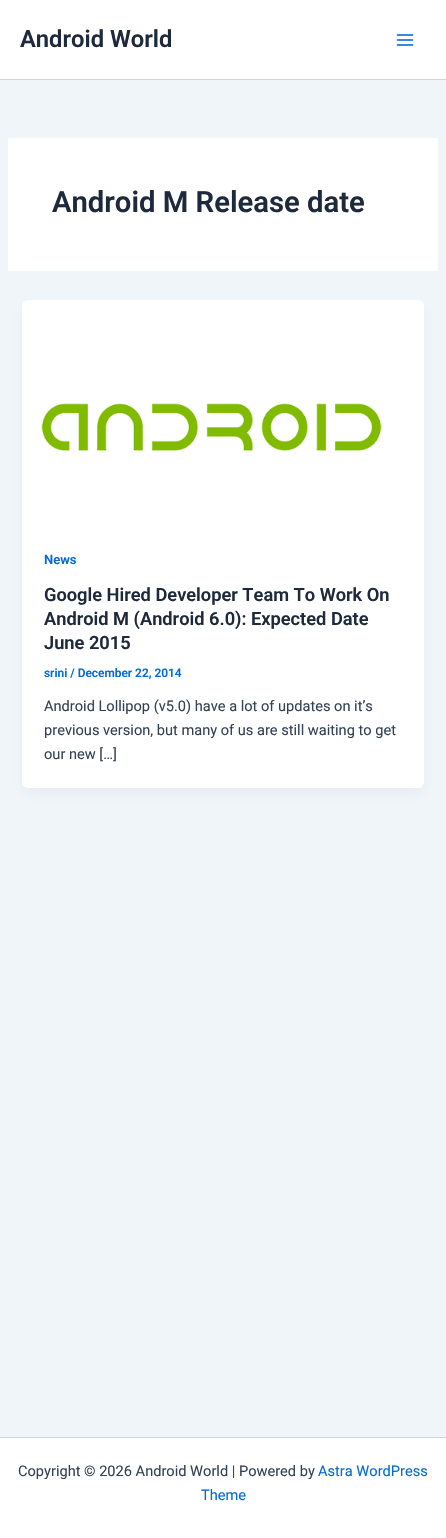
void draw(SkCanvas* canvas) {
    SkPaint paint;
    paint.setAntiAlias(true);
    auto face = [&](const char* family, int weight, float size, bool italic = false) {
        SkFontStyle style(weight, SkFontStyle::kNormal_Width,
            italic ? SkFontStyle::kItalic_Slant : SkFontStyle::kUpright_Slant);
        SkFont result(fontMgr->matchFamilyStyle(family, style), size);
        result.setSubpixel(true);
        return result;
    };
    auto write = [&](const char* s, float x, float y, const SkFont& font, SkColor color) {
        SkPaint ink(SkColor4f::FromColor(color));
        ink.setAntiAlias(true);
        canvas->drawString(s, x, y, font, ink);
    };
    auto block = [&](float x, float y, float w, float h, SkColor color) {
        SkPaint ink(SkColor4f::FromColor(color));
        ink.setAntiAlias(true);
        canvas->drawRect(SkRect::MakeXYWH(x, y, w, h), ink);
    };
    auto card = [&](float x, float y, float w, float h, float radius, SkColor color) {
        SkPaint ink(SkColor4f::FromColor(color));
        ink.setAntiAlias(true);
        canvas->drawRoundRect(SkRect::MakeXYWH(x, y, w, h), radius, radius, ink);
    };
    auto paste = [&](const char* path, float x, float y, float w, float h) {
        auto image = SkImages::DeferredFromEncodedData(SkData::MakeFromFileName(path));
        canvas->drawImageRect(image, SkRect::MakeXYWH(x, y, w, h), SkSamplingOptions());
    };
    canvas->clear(SkColorSetRGB(240, 245, 250));
    block(0, 0, 446, 79, SK_ColorWHITE);
    block(0, 79, 446, 1, SkColorSetRGB(209, 213, 219));
    auto kFont1 = face("Roboto", 600, 23.75f);
    write("Android World", 20, 47, kFont1, SkColorSetRGB(30, 41, 59));
    paste("pic1.png", 396, 34, 18, 12);
    block(8, 138, 430, 133, SK_ColorWHITE);
    auto kFont2 = face("Roboto", 600, 29.25f);
    write("Android M Release date", 52, 212, kFont2, SkColorSetRGB(30, 41, 59));
    paint.setColor(SkColorSetARGB(13, 16, 24, 40));
    paint.setMaskFilter(SkMaskFilter::MakeBlur(kNormal_SkBlurStyle, 7.5f));
    canvas->drawRoundRect(SkRect::MakeXYWH(24, 308, 398, 484), 4, 4, paint);
    paint.setMaskFilter(nullptr);
    card(22, 300, 402, 488, 6, SK_ColorWHITE);
    paste("pic2.png", 41, 403, 341, 48);
    auto kFont3 = face("Roboto", 600, 13);
    write("News", 44, 564, kFont3, SkColorSetRGB(4, 107, 210));
    auto kFont4 = face("Roboto", 600, 18.25f);
    write("Google Hired Developer Team To Work On", 44, 601, kFont4, SkColorSetRGB(30, 41, 59));
    write("Android M (Android 6.0): Expected Date", 44, 625, kFont4, SkColorSetRGB(30, 41, 59));
    write("June 2015", 44, 649, kFont4, SkColorSetRGB(30, 41, 59));
    auto kFont5 = face("Roboto", 600, 11.9f);
    write("srini / December 22, 2014", 44, 677, kFont5, SkColorSetRGB(4, 107, 210));
    auto kFont6 = face("Roboto", 400, 14.6f);
    write("Android Lollipop (v5.0) have a lot of updates on it’s", 44, 711, kFont6, SkColorSetRGB(51, 65, 85));
    write("previous version, but many of us are still waiting to get", 44, 735, kFont6, SkColorSetRGB(51, 65, 85));
    write("our new […]", 44, 759, kFont6, SkColorSetRGB(51, 65, 85));
    block(0, 1438, 446, 100, SK_ColorWHITE);
    block(0, 1437, 446, 1, SkColorSetRGB(209, 213, 219));
    write("Copyright © 2026 Android World | Powered by", 18, 1476, kFont6, SkColorSetRGB(51, 65, 85));
    write("Astra WordPress", 318, 1476, kFont6, SkColorSetRGB(4, 107, 210));
    write("Theme", 201, 1500, kFont6, SkColorSetRGB(4, 107, 210));
}
